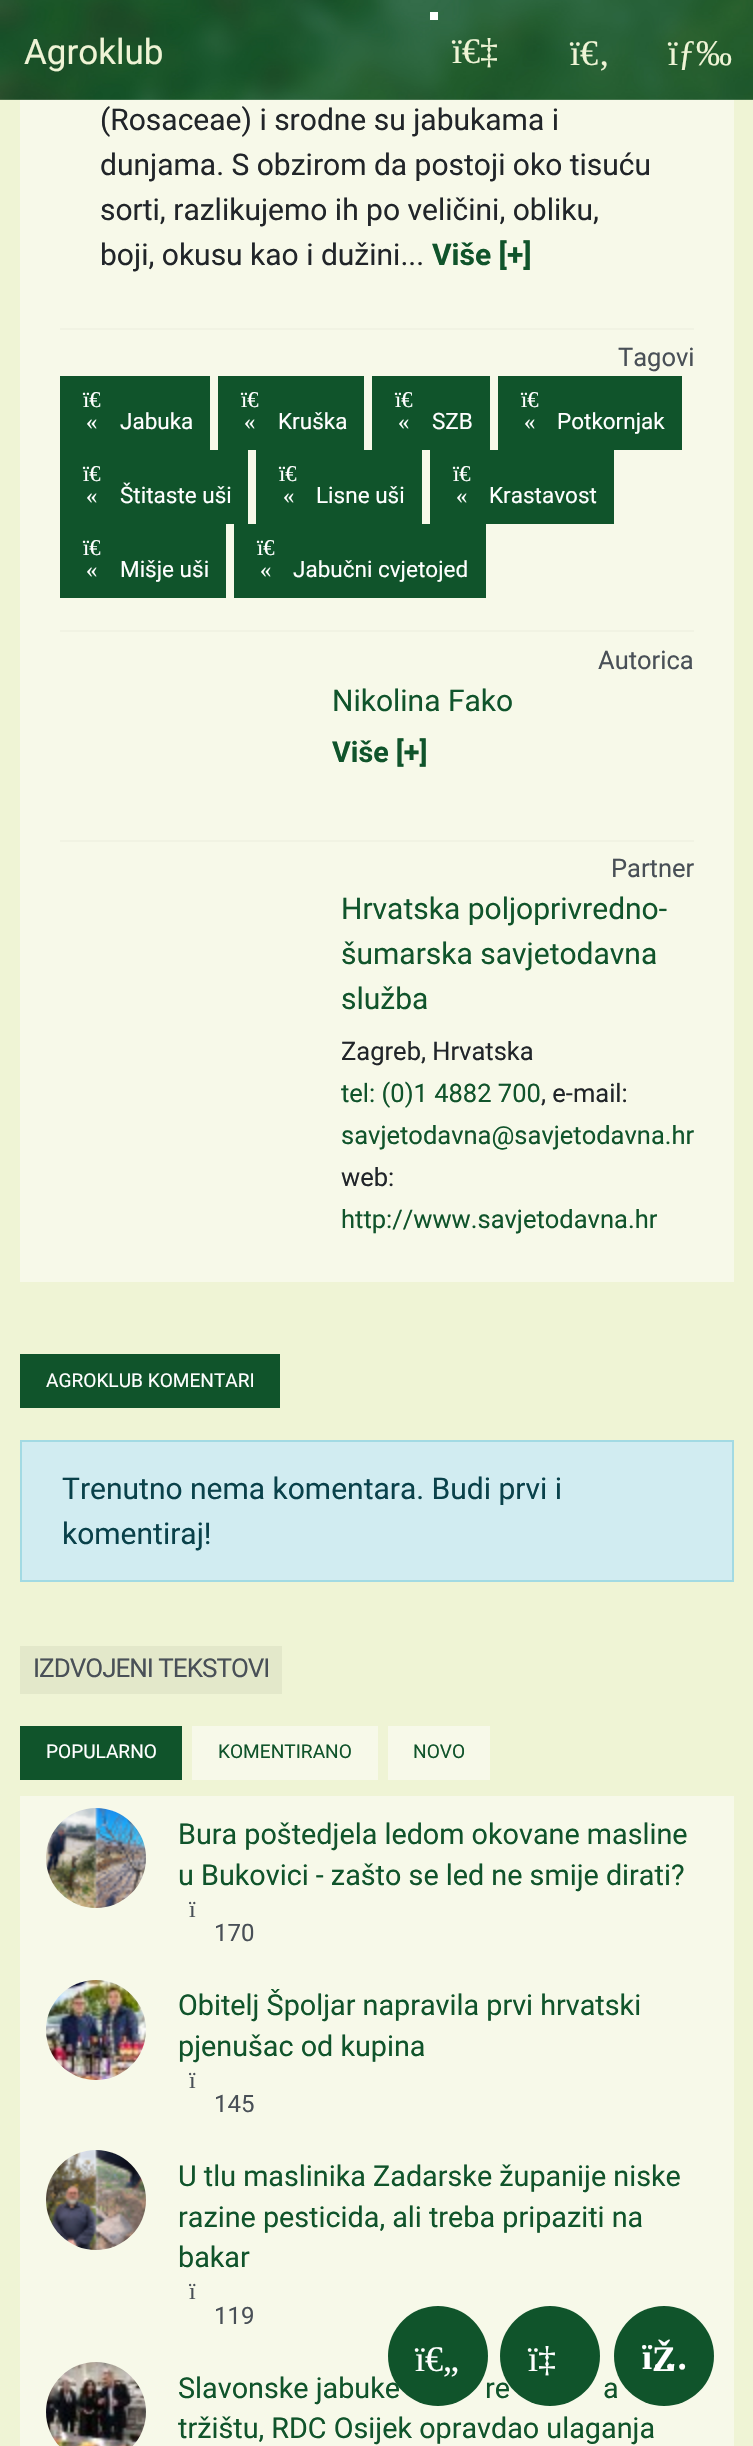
void draw(SkCanvas* canvas) {
    SkPaint paint;
    paint.setAntiAlias(true);
    auto face = [&](const char* family, int weight, float size, bool italic = false) {
        SkFontStyle style(weight, SkFontStyle::kNormal_Width,
            italic ? SkFontStyle::kItalic_Slant : SkFontStyle::kUpright_Slant);
        SkFont result(fontMgr->matchFamilyStyle(family, style), size);
        result.setSubpixel(true);
        return result;
    };
    auto write = [&](const char* s, float x, float y, const SkFont& font, SkColor color) {
        SkPaint ink(SkColor4f::FromColor(color));
        ink.setAntiAlias(true);
        canvas->drawString(s, x, y, font, ink);
    };
    auto writeSpaced = [&](const char* s, float x, float y, const SkFont& font, const SkPaint& ink, float letter, float word) {
        std::vector<SkGlyphID> glyphs(font.countText(s, strlen(s), SkTextEncoding::kUTF8));
        std::vector<float> xs(glyphs.size());
        font.textToGlyphs(s, strlen(s), SkTextEncoding::kUTF8, glyphs);
        font.getXPos(glyphs, xs, x);
        float extra = 0;
        for (size_t i = 0; i < glyphs.size(); i++) {
            xs[i] += extra;
            extra += letter + word * (glyphs[i] == font.unicharToGlyph(' '));
        }
        canvas->drawTextBlob(SkTextBlob::MakeFromPosHGlyphs(glyphs, xs, y, font), 0, 0, ink);
    };
    auto block = [&](float x, float y, float w, float h, SkColor color) {
        SkPaint ink(SkColor4f::FromColor(color));
        ink.setAntiAlias(true);
        canvas->drawRect(SkRect::MakeXYWH(x, y, w, h), ink);
    };
    auto paste = [&](const char* path, float x, float y, float w, float h) {
        auto image = SkImages::DeferredFromEncodedData(SkData::MakeFromFileName(path));
        canvas->drawImageRect(image, SkRect::MakeXYWH(x, y, w, h), SkSamplingOptions());
    };
    canvas->clear(SkColorSetRGB(239, 244, 213));
    block(20, 99, 714, 1183, SkColorSetRGB(247, 249, 233));
    paste("pic1.png", 0, 0, 753, 100);
    auto kFont1 = face("Roboto", 400, 35);
    write("Agroklub", 24, 64, kFont1, SkColorSetRGB(239, 244, 213));
    block(430, 12, 8, 8, SK_ColorWHITE);
    auto kFont2 = face("Liberation Serif", 400, 36);
    write("ï€‡", 452, 63, kFont2, SkColorSetRGB(239, 244, 213));
    write("ï€‚", 570, 65, kFont2, SkColorSetRGB(239, 244, 213));
    write("ïƒ‰", 668, 65, kFont2, SkColorSetRGB(239, 244, 213));
    auto kFont3 = face("Roboto", 400, 30);
    write("(Rosaceae) i srodne su jabukama i", 100, 130, kFont3, SkColorSetRGB(33, 37, 41));
    write("dunjama. S obzirom da postoji oko tisuću", 100, 175, kFont3, SkColorSetRGB(33, 37, 41));
    write("sorti, razlikujemo ih po veličini, obliku,", 100, 220, kFont3, SkColorSetRGB(33, 37, 41));
    write("boji, okusu kao i dužini...", 100, 265, kFont3, SkColorSetRGB(33, 37, 41));
    auto kFont4 = face("Roboto", 700, 30);
    write("Više [+]", 432, 265, kFont4, SkColorSetRGB(16, 84, 43));
    block(60, 328, 634, 2, SkColorSetRGB(241, 243, 227));
    auto kFont5 = face("Roboto", 400, 25.5f);
    write("Tagovi", 618, 366, kFont5, SkColorSetRGB(73, 80, 87));
    block(60, 376, 150, 74, SkColorSetRGB(16, 84, 43));
    auto kFont6 = face("Liberation Serif", 400, 22.5f);
    write("ï€", 83, 407, kFont6, SK_ColorWHITE);
    write("«", 86, 429, kFont6, SK_ColorWHITE);
    auto kFont7 = face("Roboto", 400, 22.5f);
    write("Jabuka", 120, 429, kFont7, SK_ColorWHITE);
    block(218, 376, 146, 74, SkColorSetRGB(16, 84, 43));
    write("ï€", 241, 407, kFont6, SK_ColorWHITE);
    write("«", 244, 429, kFont6, SK_ColorWHITE);
    write("Kruška", 278, 429, kFont7, SK_ColorWHITE);
    block(372, 376, 118, 74, SkColorSetRGB(16, 84, 43));
    write("ï€", 395, 407, kFont6, SK_ColorWHITE);
    write("«", 398, 429, kFont6, SK_ColorWHITE);
    write("SZB", 432, 429, kFont7, SK_ColorWHITE);
    block(498, 376, 184, 74, SkColorSetRGB(16, 84, 43));
    write("ï€", 521, 407, kFont6, SK_ColorWHITE);
    write("«", 524, 429, kFont6, SK_ColorWHITE);
    write("Potkornjak", 557, 429, kFont7, SK_ColorWHITE);
    block(60, 450, 188, 74, SkColorSetRGB(16, 84, 43));
    write("ï€", 83, 481, kFont6, SK_ColorWHITE);
    write("«", 86, 503, kFont6, SK_ColorWHITE);
    write("Štitaste uši", 120, 503, kFont7, SK_ColorWHITE);
    block(256, 450, 166, 74, SkColorSetRGB(16, 84, 43));
    write("ï€", 279, 481, kFont6, SK_ColorWHITE);
    write("«", 283, 503, kFont6, SK_ColorWHITE);
    write("Lisne uši", 316, 503, kFont7, SK_ColorWHITE);
    block(430, 450, 184, 74, SkColorSetRGB(16, 84, 43));
    write("ï€", 453, 481, kFont6, SK_ColorWHITE);
    write("«", 456, 503, kFont6, SK_ColorWHITE);
    write("Krastavost", 489, 503, kFont7, SK_ColorWHITE);
    block(60, 524, 166, 74, SkColorSetRGB(16, 84, 43));
    write("ï€", 83, 555, kFont6, SK_ColorWHITE);
    write("«", 86, 577, kFont6, SK_ColorWHITE);
    write("Mišje uši", 120, 577, kFont7, SK_ColorWHITE);
    block(234, 524, 252, 74, SkColorSetRGB(16, 84, 43));
    write("ï€", 257, 555, kFont6, SK_ColorWHITE);
    write("«", 260, 577, kFont6, SK_ColorWHITE);
    write("Jabučni cvjetojed", 293, 577, kFont7, SK_ColorWHITE);
    block(60, 630, 634, 2, SkColorSetRGB(241, 243, 227));
    write("Autorica", 598, 669, kFont5, SkColorSetRGB(73, 80, 87));
    write("Nikolina Fako", 332, 711, kFont3, SkColorSetRGB(16, 84, 43));
    auto kFont8 = face("Roboto", 700, 28.75f);
    write("Više [+]", 332, 762, kFont8, SkColorSetRGB(16, 84, 43));
    block(60, 840, 634, 2, SkColorSetRGB(241, 243, 227));
    write("Partner", 611, 877, kFont5, SkColorSetRGB(73, 80, 87));
    write("Hrvatska poljoprivredno-", 341, 919, kFont3, SkColorSetRGB(16, 84, 43));
    write("šumarska savjetodavna", 341, 964, kFont3, SkColorSetRGB(16, 84, 43));
    write("služba", 341, 1009, kFont3, SkColorSetRGB(16, 84, 43));
    write("Zagreb, Hrvatska", 341, 1060, kFont5, SkColorSetRGB(33, 37, 41));
    write("tel: (0)1 4882 700", 341, 1102, kFont5, SkColorSetRGB(16, 84, 43));
    write(", e-mail:", 541, 1102, kFont5, SkColorSetRGB(33, 37, 41));
    write("savjetodavna@savjetodavna.hr", 341, 1144, kFont5, SkColorSetRGB(16, 84, 43));
    write("web:", 341, 1186, kFont5, SkColorSetRGB(33, 37, 41));
    write("http://www.savjetodavna.hr", 341, 1228, kFont5, SkColorSetRGB(16, 84, 43));
    block(20, 1354, 260, 54, SkColorSetRGB(16, 84, 43));
    auto kFont9 = face("Roboto", 400, 19.1f);
    write("AGROKLUB KOMENTARI", 46, 1387, kFont9, SK_ColorWHITE);
    paint.setColor(SkColorSetRGB(209, 236, 241));
    canvas->drawRect(SkRect::MakeXYWH(21, 1441, 712, 140), paint);
    paint.setStyle(SkPaint::kStroke_Style);
    paint.setStrokeWidth(2);
    paint.setColor(SkColorSetRGB(162, 218, 227));
    canvas->drawRect(SkRect::MakeXYWH(21, 1441, 712, 140), paint);
    write("Trenutno nema komentara. Budi prvi i", 62, 1499, kFont3, SkColorSetRGB(9, 65, 74));
    write("komentiraj!", 62, 1544, kFont3, SkColorSetRGB(9, 65, 74));
    block(20, 1646, 262, 48, SkColorSetRGB(227, 232, 202));
    auto kFont10 = face("Roboto", 400, 26);
    paint.setStyle(SkPaint::kFill_Style);
    paint.setColor(SkColorSetRGB(73, 80, 87));
    writeSpaced("IZDVOJENI TEKSTOVI", 33, 1677, kFont10, paint, -1, 0);
    block(20, 1726, 162, 54, SkColorSetRGB(16, 84, 43));
    write("POPULARNO", 46, 1758, kFont9, SK_ColorWHITE);
    block(192, 1726, 186, 54, SkColorSetRGB(247, 249, 233));
    write("KOMENTIRANO", 218, 1758, kFont9, SkColorSetRGB(16, 84, 43));
    block(388, 1726, 102, 54, SkColorSetRGB(247, 249, 233));
    write("NOVO", 413, 1758, kFont9, SkColorSetRGB(16, 84, 43));
    block(20, 1796, 714, 650, SkColorSetRGB(247, 249, 233));
    paste("pic2.png", 46, 1808, 100, 100);
    auto kFont11 = face("Roboto", 400, 28.75f);
    write("Bura poštedjela ledom okovane masline", 178, 1844, kFont11, SkColorSetRGB(16, 84, 43));
    write("u Bukovici - zašto se led ne smije dirati?", 178, 1885, kFont11, SkColorSetRGB(16, 84, 43));
    auto kFont12 = face("Liberation Serif", 400, 24);
    write("ï", 189, 1917, kFont12, SkColorSetRGB(73, 80, 87));
    auto kFont13 = face("Roboto", 400, 24);
    write("170", 214, 1941, kFont13, SkColorSetRGB(73, 80, 87));
    paste("pic3.png", 46, 1980, 100, 100);
    write("Obitelj Špoljar napravila prvi hrvatski", 178, 2015, kFont11, SkColorSetRGB(16, 84, 43));
    write("pjenušac od kupina", 178, 2056, kFont11, SkColorSetRGB(16, 84, 43));
    write("ï", 189, 2088, kFont12, SkColorSetRGB(73, 80, 87));
    write("145", 214, 2112, kFont13, SkColorSetRGB(73, 80, 87));
    paste("pic4.png", 46, 2150, 100, 100);
    write("U tlu maslinika Zadarske županije niske", 178, 2186, kFont11, SkColorSetRGB(16, 84, 43));
    write("razine pesticida, ali treba pripaziti na", 178, 2227, kFont11, SkColorSetRGB(16, 84, 43));
    write("bakar", 178, 2267, kFont11, SkColorSetRGB(16, 84, 43));
    write("ï", 189, 2299, kFont12, SkColorSetRGB(73, 80, 87));
    write("119", 214, 2324, kFont13, SkColorSetRGB(73, 80, 87));
    paste("pic5.png", 46, 2362, 100, 84);
    write("Slavonske jabuke", 178, 2398, kFont11, SkColorSetRGB(16, 84, 43));
    write("re", 485, 2398, kFont11, SkColorSetRGB(16, 84, 43));
    write("a", 603, 2398, kFont11, SkColorSetRGB(16, 84, 43));
    write("tržištu, RDC Osijek opravdao ulaganja", 178, 2438, kFont11, SkColorSetRGB(16, 84, 43));
    paint.setColor(SkColorSetRGB(16, 84, 43));
    canvas->drawCircle(438, 2356, 50, paint);
    write("ï€„", 415, 2371, kFont2, SK_ColorWHITE);
    canvas->drawCircle(550, 2356, 50, paint);
    write("ï‡", 528, 2371, kFont2, SK_ColorWHITE);
    canvas->drawCircle(664, 2356, 50, paint);
    auto kFont14 = face("Liberation Serif", 700, 36);
    write("ï…", 642, 2369, kFont14, SK_ColorWHITE);
    write("Ž", 652, 2371, kFont14, SK_ColorWHITE);
}
